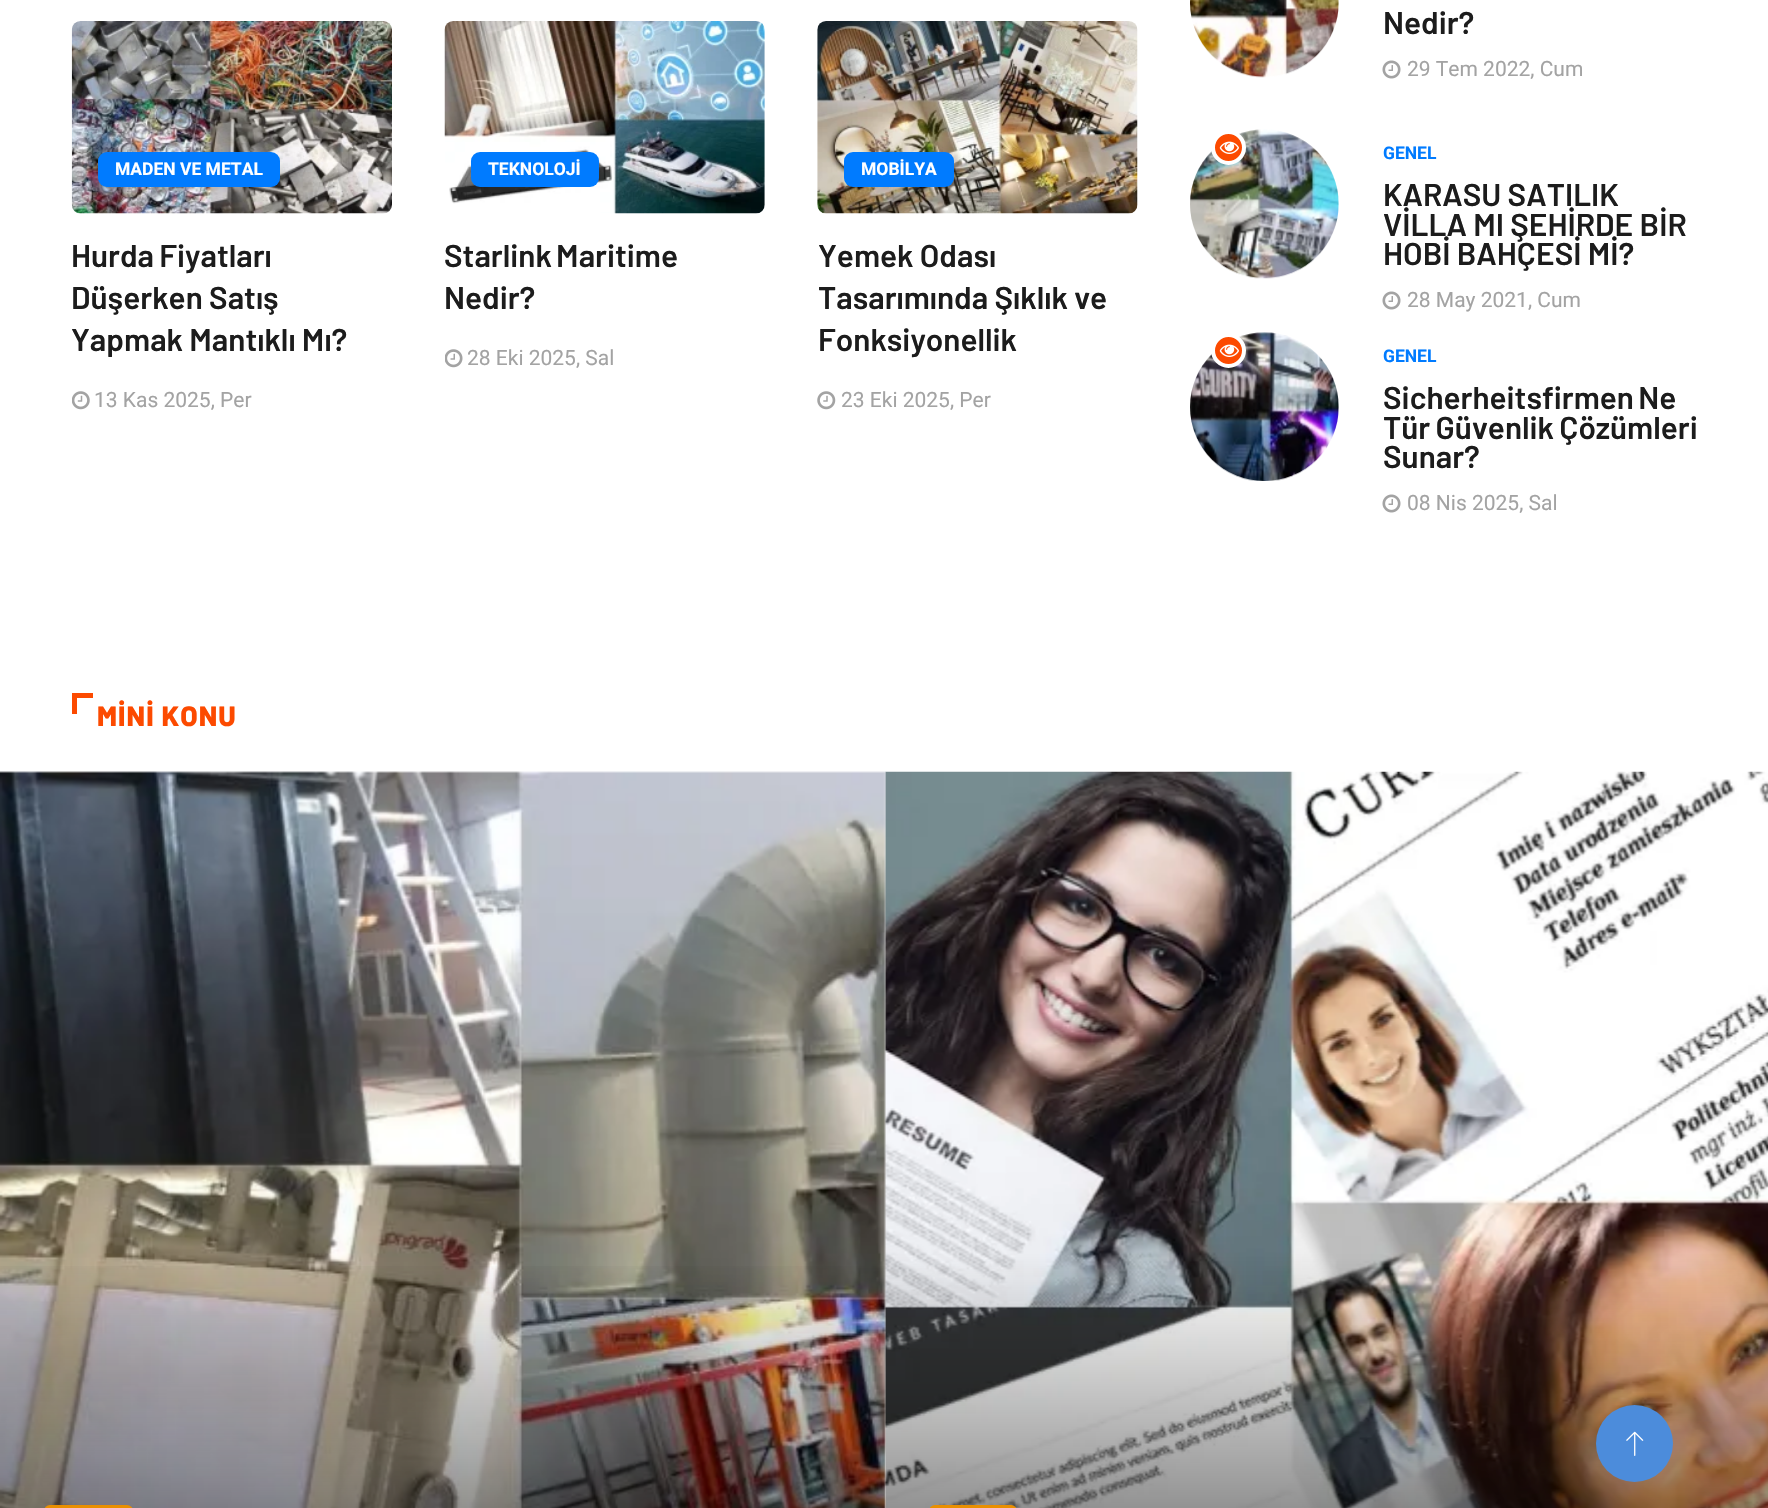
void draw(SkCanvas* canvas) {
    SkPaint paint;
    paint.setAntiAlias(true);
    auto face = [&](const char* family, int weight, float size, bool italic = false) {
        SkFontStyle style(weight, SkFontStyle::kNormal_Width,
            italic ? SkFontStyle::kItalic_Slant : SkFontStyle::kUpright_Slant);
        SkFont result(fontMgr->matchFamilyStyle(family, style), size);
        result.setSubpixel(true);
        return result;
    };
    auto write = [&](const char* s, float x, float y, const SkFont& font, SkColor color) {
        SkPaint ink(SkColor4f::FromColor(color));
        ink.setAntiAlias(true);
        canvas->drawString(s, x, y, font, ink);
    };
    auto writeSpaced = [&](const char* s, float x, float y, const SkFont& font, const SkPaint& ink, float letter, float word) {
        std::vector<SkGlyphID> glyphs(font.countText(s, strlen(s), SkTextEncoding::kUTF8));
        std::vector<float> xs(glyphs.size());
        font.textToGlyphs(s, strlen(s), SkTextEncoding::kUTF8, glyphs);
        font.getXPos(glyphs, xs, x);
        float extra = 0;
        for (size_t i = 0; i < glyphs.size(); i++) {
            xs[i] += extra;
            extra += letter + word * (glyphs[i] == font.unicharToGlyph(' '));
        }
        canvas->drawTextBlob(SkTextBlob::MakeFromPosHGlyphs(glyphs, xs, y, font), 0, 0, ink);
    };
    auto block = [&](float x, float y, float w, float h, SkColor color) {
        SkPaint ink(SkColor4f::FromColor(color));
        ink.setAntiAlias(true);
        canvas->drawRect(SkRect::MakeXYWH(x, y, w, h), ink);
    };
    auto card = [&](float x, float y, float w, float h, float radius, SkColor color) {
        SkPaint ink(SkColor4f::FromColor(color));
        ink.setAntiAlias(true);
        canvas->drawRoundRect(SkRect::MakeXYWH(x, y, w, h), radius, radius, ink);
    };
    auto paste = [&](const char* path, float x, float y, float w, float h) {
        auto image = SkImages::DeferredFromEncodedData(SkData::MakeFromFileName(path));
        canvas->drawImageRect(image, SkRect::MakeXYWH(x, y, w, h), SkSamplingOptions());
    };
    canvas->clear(SK_ColorWHITE);
    paste("pic1.png", 71, 21, 321, 193);
    card(98, 152, 182, 35, 9, SkColorSetRGB(0, 123, 255));
    auto kFont1 = face("Roboto", 700, 17.5f);
    write("MADEN VE METAL", 115, 175, kFont1, SK_ColorWHITE);
    auto kFont2 = face("Barlow", 600, 31.5f);
    paint.setColor(SkColorSetRGB(28, 28, 28));
    writeSpaced("Hurda Fiyatları", 71, 267, kFont2, paint, 0, -1);
    write("Düşerken Satış", 71, 309, kFont2, SkColorSetRGB(28, 28, 28));
    write("Yapmak Mantıklı Mı?", 71, 351, kFont2, SkColorSetRGB(28, 28, 28));
    paste("pic2.png", 72, 391, 18, 19);
    auto kFont3 = face("Roboto", 400, 21);
    write("13 Kas 2025, Per", 94, 407, kFont3, SkColorSetRGB(163, 163, 163));
    paste("pic3.png", 444, 21, 321, 193);
    card(471, 152, 128, 35, 9, SkColorSetRGB(0, 123, 255));
    write("TEKNOLOJİ", 488, 175, kFont1, SK_ColorWHITE);
    writeSpaced("Starlink Maritime", 444, 267, kFont2, paint, 0, -2);
    write("Nedir?", 444, 309, kFont2, SkColorSetRGB(28, 28, 28));
    paste("pic4.png", 445, 349, 18, 19);
    write("28 Eki 2025, Sal", 467, 365, kFont3, SkColorSetRGB(163, 163, 163));
    paste("pic5.png", 817, 21, 321, 193);
    card(844, 152, 110, 35, 9, SkColorSetRGB(0, 123, 255));
    write("MOBİLYA", 861, 175, kFont1, SK_ColorWHITE);
    write("Yemek Odası", 818, 267, kFont2, SkColorSetRGB(28, 28, 28));
    write("Tasarımında Şıklık ve", 818, 309, kFont2, SkColorSetRGB(28, 28, 28));
    write("Fonksiyonellik", 818, 351, kFont2, SkColorSetRGB(28, 28, 28));
    paste("pic6.png", 817, 391, 19, 19);
    write("23 Eki 2025, Per", 841, 407, kFont3, SkColorSetRGB(163, 163, 163));
    paste("pic7.png", 1190, 0, 149, 78);
    write("Nedir?", 1383, 34, kFont2, SkColorSetRGB(28, 28, 28));
    paste("pic8.png", 1382, 60, 19, 19);
    write("29 Tem 2022, Cum", 1407, 76, kFont3, SkColorSetRGB(163, 163, 163));
    paste("pic9.png", 1190, 129, 149, 150);
    paint.setColor(SkColorSetRGB(252, 74, 0));
    canvas->drawCircle(1228.5f, 147.5f, 15.5f, paint);
    paint.setStyle(SkPaint::kStroke_Style);
    paint.setStrokeWidth(4);
    paint.setColor(SK_ColorWHITE);
    canvas->drawCircle(1228.5f, 147.5f, 15.5f, paint);
    paste("pic10.png", 1219, 141, 20, 13);
    write("GENEL", 1383, 159, kFont1, SkColorSetRGB(0, 123, 255));
    write("KARASU SATILIK", 1383, 206, kFont2, SkColorSetRGB(28, 28, 28));
    write("VİLLA MI ŞEHİRDE BİR", 1383, 236, kFont2, SkColorSetRGB(28, 28, 28));
    write("HOBİ BAHÇESİ Mİ?", 1383, 265, kFont2, SkColorSetRGB(28, 28, 28));
    paste("pic8.png", 1382, 291, 19, 19);
    write("28 May 2021, Cum", 1407, 307, kFont3, SkColorSetRGB(163, 163, 163));
    paste("pic11.png", 1190, 332, 149, 149);
    paint.setStyle(SkPaint::kFill_Style);
    paint.setColor(SkColorSetRGB(252, 74, 0));
    canvas->drawCircle(1228.5f, 350.5f, 15.5f, paint);
    paint.setStyle(SkPaint::kStroke_Style);
    paint.setColor(SK_ColorWHITE);
    canvas->drawCircle(1228.5f, 350.5f, 15.5f, paint);
    paste("pic10.png", 1219, 344, 20, 13);
    write("GENEL", 1383, 362, kFont1, SkColorSetRGB(0, 123, 255));
    paint.setStyle(SkPaint::kFill_Style);
    paint.setColor(SkColorSetRGB(28, 28, 28));
    writeSpaced("Sicherheitsfirmen Ne", 1383, 409, kFont2, paint, 0, -2);
    writeSpaced("Tür Güvenlik Çözümleri", 1383, 439, kFont2, paint, 0, -1);
    write("Sunar?", 1383, 468, kFont2, SkColorSetRGB(28, 28, 28));
    paste("pic12.png", 1382, 494, 19, 19);
    write("08 Nis 2025, Sal", 1407, 510, kFont3, SkColorSetRGB(163, 163, 163));
    block(72, 693, 5, 21, SkColorSetRGB(252, 74, 0));
    block(72, 693, 21, 5, SkColorSetRGB(252, 74, 0));
    auto kFont4 = face("Barlow", 800, 28);
    paint.setColor(SkColorSetRGB(252, 74, 0));
    writeSpaced("MİNİ KONU", 97, 726, kFont4, paint, 1.1f, 0);
    paste("pic13.png", 0, 771, 886, 737);
    {
        const SkColor colors[] = {SkColorSetARGB(0, 0, 0, 0), SkColorSetARGB(204, 0, 0, 0)};
        const float stops[] = {0.5f, 1};
        const SkPoint ends[] = {{443, 772}, {443, 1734}};
        paint.setShader(SkGradientShader::MakeLinear(ends, colors, stops, 2, SkTileMode::kClamp));
        paint.setAlpha(255);
    }
    canvas->drawRect(SkRect::MakeXYWH(0, 1266, 886, 242), paint);
    card(44, 1505, 89, 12, 9, SkColorSetRGB(234, 143, 0));
    paste("pic14.png", 884, 771, 884, 737);
    card(929, 1505, 88, 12, 9, SkColorSetRGB(234, 143, 0));
    paint.setShader(nullptr);
    paint.setColor(SkColorSetRGB(76, 140, 219));
    canvas->drawCircle(1634.5f, 1443.5f, 38.5f, paint);
    paste("pic15.png", 1626, 1431, 18, 25);
}
